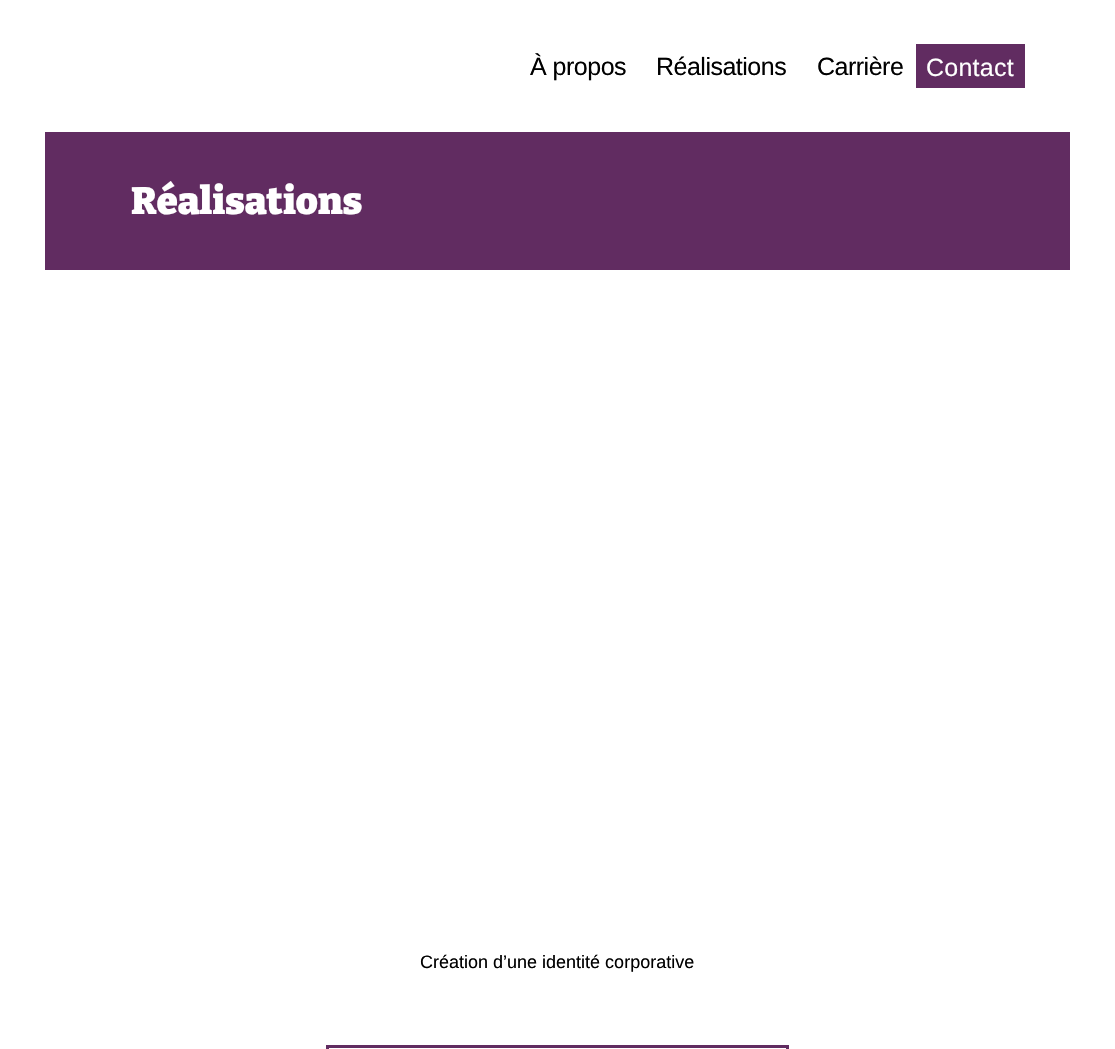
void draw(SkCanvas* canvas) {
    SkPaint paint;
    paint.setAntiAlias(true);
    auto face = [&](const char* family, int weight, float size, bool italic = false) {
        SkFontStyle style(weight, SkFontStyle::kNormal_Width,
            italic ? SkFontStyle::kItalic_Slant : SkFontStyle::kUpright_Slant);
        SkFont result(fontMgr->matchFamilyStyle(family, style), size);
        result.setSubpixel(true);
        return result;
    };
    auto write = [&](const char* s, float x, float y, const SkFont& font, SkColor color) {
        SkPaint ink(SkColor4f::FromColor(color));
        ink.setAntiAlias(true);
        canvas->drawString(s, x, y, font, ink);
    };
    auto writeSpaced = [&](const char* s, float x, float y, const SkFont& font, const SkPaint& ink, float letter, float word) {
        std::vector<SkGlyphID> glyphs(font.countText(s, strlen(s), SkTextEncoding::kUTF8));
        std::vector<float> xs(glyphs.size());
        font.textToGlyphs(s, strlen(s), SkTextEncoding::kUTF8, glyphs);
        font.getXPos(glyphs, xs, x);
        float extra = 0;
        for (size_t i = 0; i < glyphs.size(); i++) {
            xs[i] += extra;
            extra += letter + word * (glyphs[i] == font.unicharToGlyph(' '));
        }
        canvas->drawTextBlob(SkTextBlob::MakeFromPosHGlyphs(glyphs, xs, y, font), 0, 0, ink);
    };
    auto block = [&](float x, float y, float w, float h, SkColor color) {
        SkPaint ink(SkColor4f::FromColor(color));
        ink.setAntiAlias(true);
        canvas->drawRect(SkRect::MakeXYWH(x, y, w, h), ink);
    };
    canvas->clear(SK_ColorWHITE);
    auto kFont1 = face("Liberation Sans", 400, 25);
    paint.setColor(SK_ColorBLACK);
    writeSpaced("À propos", 530, 75, kFont1, paint, -0.5f, 0);
    writeSpaced("Réalisations", 656, 75, kFont1, paint, -0.5f, 0);
    writeSpaced("Carrière", 817, 75, kFont1, paint, -0.5f, 0);
    block(916, 44, 109, 44, SkColorSetRGB(97, 44, 97));
    paint.setColor(SK_ColorWHITE);
    writeSpaced("Contact", 926, 76, kFont1, paint, 0.25f, 0);
    block(45, 132, 1025, 138, SkColorSetRGB(97, 44, 97));
    auto kFont2 = face("Bitter", 900, 38);
    write("Réalisations", 131, 214, kFont2, SK_ColorWHITE);
    auto kFont3 = face("Liberation Sans", 400, 18);
    write("Création d’une identité corporative", 420, 968, kFont3, SK_ColorBLACK);
    paint.setStyle(SkPaint::kStroke_Style);
    paint.setStrokeWidth(3);
    paint.setColor(SkColorSetRGB(97, 44, 97));
    canvas->drawRect(SkRect::MakeXYWH(327.5f, 1046.5f, 460, 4), paint);
}
